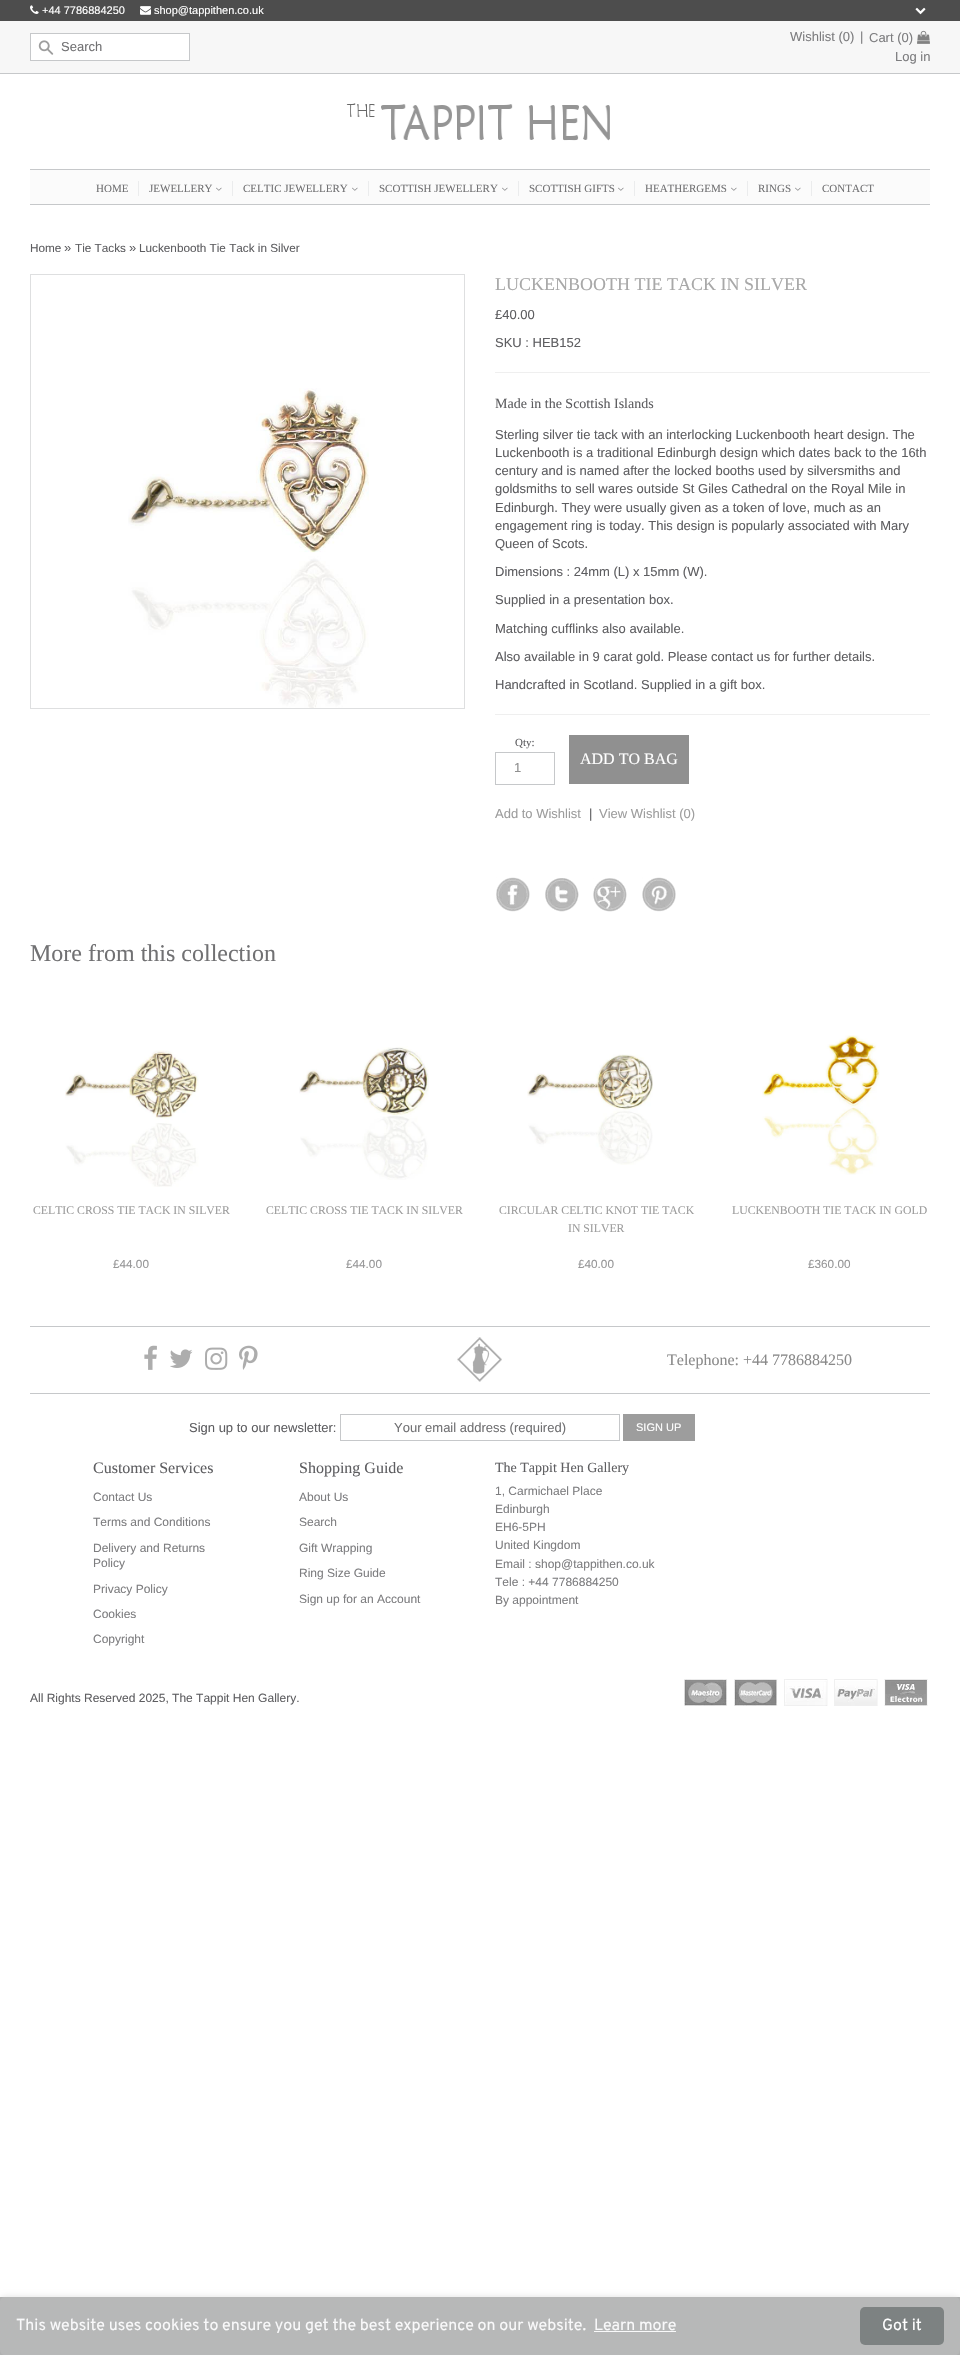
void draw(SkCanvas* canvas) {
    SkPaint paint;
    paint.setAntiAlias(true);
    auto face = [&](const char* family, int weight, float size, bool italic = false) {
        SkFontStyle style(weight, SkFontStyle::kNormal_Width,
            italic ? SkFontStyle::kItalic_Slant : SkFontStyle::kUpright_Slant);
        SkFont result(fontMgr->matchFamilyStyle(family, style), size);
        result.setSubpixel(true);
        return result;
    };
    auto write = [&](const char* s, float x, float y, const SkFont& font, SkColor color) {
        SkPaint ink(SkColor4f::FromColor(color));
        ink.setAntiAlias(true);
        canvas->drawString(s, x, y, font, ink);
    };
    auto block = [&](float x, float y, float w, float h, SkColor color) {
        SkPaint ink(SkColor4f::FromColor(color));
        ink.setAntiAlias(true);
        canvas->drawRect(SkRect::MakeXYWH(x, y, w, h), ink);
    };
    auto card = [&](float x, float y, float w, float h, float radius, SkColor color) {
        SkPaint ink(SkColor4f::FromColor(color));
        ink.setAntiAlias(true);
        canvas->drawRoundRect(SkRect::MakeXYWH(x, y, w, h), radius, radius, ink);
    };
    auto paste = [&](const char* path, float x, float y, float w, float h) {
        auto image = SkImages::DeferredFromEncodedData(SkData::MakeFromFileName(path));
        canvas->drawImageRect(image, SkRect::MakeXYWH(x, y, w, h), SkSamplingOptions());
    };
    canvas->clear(SK_ColorWHITE);
    block(0, 0, 960, 21, SkColorSetRGB(77, 77, 77));
    paste("pic1.png", 30, 5, 9, 9);
    auto kFont1 = face("Liberation Sans", 400, 11);
    write("+44 7786884250", 42, 14, kFont1, SK_ColorWHITE);
    paste("pic2.png", 140, 6, 11, 9);
    write("shop@tappithen.co.uk", 154, 14, kFont1, SK_ColorWHITE);
    paste("pic3.png", 915, 7, 11, 8);
    block(0, 21, 960, 52, SkColorSetRGB(247, 247, 247));
    block(0, 73, 960, 1, SkColorSetRGB(198, 200, 202));
    paint.setColor(SK_ColorWHITE);
    canvas->drawRect(SkRect::MakeXYWH(30.5f, 33.5f, 159, 27), paint);
    paint.setStyle(SkPaint::kStroke_Style);
    paint.setStrokeWidth(1);
    paint.setColor(SkColorSetRGB(198, 200, 202));
    canvas->drawRect(SkRect::MakeXYWH(30.5f, 33.5f, 159, 27), paint);
    paste("pic4.png", 38, 40, 16, 15);
    auto kFont2 = face("Liberation Sans", 400, 13);
    write("Search", 61, 51, kFont2, SkColorSetRGB(113, 113, 115));
    write("Wishlist (0)", 790, 41, kFont2, SkColorSetRGB(125, 125, 127));
    write("|", 860, 41, kFont2, SkColorSetRGB(125, 125, 127));
    write("Cart (0)", 869, 42, kFont2, SkColorSetRGB(125, 125, 127));
    paste("pic5.png", 917, 30, 13, 14);
    write("Log in", 895, 61, kFont2, SkColorSetRGB(125, 125, 127));
    paste("pic6.png", 346, 103, 264, 38);
    block(30, 170, 900, 34, SkColorSetRGB(251, 251, 251));
    block(30, 169, 900, 1, SkColorSetRGB(198, 200, 202));
    block(30, 204, 900, 1, SkColorSetRGB(198, 200, 202));
    auto kFont3 = face("Liberation Serif", 400, 11);
    write("HOME", 96, 192, kFont3, SkColorSetRGB(113, 113, 115));
    block(138, 181, 1, 15, SkColorSetRGB(235, 236, 237));
    write("JEWELLERY", 149, 192, kFont3, SkColorSetRGB(113, 113, 115));
    paste("pic7.png", 216, 187, 6, 4);
    block(232, 181, 1, 15, SkColorSetRGB(235, 236, 237));
    write("CELTIC JEWELLERY", 243, 192, kFont3, SkColorSetRGB(113, 113, 115));
    paste("pic7.png", 352, 187, 6, 4);
    block(368, 181, 1, 15, SkColorSetRGB(235, 236, 237));
    write("SCOTTISH JEWELLERY", 379, 192, kFont3, SkColorSetRGB(113, 113, 115));
    paste("pic7.png", 502, 187, 6, 4);
    block(518, 181, 1, 15, SkColorSetRGB(235, 236, 237));
    write("SCOTTISH GIFTS", 529, 192, kFont3, SkColorSetRGB(113, 113, 115));
    paste("pic7.png", 618, 187, 6, 4);
    block(634, 181, 1, 15, SkColorSetRGB(235, 236, 237));
    write("HEATHERGEMS", 645, 192, kFont3, SkColorSetRGB(113, 113, 115));
    paste("pic7.png", 731, 187, 6, 4);
    block(747, 181, 1, 15, SkColorSetRGB(235, 236, 237));
    write("RINGS", 758, 192, kFont3, SkColorSetRGB(113, 113, 115));
    paste("pic7.png", 795, 187, 6, 4);
    block(811, 181, 1, 15, SkColorSetRGB(235, 236, 237));
    write("CONTACT", 822, 192, kFont3, SkColorSetRGB(113, 113, 115));
    auto kFont4 = face("Liberation Sans", 400, 11.75f);
    write("Home", 30, 252, kFont4, SkColorSetRGB(94, 94, 97));
    write("»", 64, 252, kFont2, SkColorSetRGB(94, 94, 97));
    write("Tie Tacks", 75, 252, kFont4, SkColorSetRGB(94, 94, 97));
    write("»", 129, 252, kFont2, SkColorSetRGB(94, 94, 97));
    write("Luckenbooth Tie Tack in Silver", 139, 252, kFont4, SkColorSetRGB(94, 94, 97));
    paint.setColor(SkColorSetRGB(222, 223, 224));
    canvas->drawRect(SkRect::MakeXYWH(30.5f, 274.5f, 434, 434), paint);
    paste("pic8.png", 128, 388, 241, 320);
    auto kFont5 = face("Liberation Serif", 400, 18);
    write("LUCKENBOOTH TIE TACK IN SILVER", 495, 290, kFont5, SkColorSetRGB(168, 168, 168));
    write("£40.00", 495, 319, kFont2, SkColorSetRGB(94, 94, 97));
    write("SKU : HEB152", 495, 347, kFont2, SkColorSetRGB(94, 94, 97));
    block(495, 372, 435, 1, SkColorSetRGB(239, 239, 239));
    auto kFont6 = face("Liberation Serif", 400, 14);
    write("Made in the Scottish Islands", 495, 408, kFont6, SkColorSetRGB(94, 94, 97));
    write("Sterling silver tie tack with an interlocking Luckenbooth heart design. The", 495, 439, kFont2, SkColorSetRGB(94, 94, 97));
    write("Luckenbooth is a traditional Edinburgh design which dates back to the 16th", 495, 457, kFont2, SkColorSetRGB(94, 94, 97));
    write("century and is named after the locked booths used by silversmiths and", 495, 475, kFont2, SkColorSetRGB(94, 94, 97));
    write("goldsmiths to sell wares outside St Giles Cathedral on the Royal Mile in", 495, 493, kFont2, SkColorSetRGB(94, 94, 97));
    write("Edinburgh. They were usually given as a token of love, much as an", 495, 512, kFont2, SkColorSetRGB(94, 94, 97));
    write("engagement ring is today. This design is popularly associated with Mary", 495, 530, kFont2, SkColorSetRGB(94, 94, 97));
    write("Queen of Scots.", 495, 548, kFont2, SkColorSetRGB(94, 94, 97));
    write("Dimensions : 24mm (L) x 15mm (W).", 495, 576, kFont2, SkColorSetRGB(94, 94, 97));
    write("Supplied in a presentation box.", 495, 604, kFont2, SkColorSetRGB(94, 94, 97));
    write("Matching cufflinks also available.", 495, 633, kFont2, SkColorSetRGB(94, 94, 97));
    write("Also available in 9 carat gold. Please contact us for further details.", 495, 661, kFont2, SkColorSetRGB(94, 94, 97));
    write("Handcrafted in Scotland. Supplied in a gift box.", 495, 689, kFont2, SkColorSetRGB(94, 94, 97));
    block(495, 714, 435, 1, SkColorSetRGB(239, 239, 239));
    write("Qty:", 515, 746, kFont3, SkColorSetRGB(94, 94, 97));
    paint.setColor(SkColorSetRGB(198, 200, 202));
    canvas->drawRect(SkRect::MakeXYWH(495.5f, 752.5f, 59, 32), paint);
    write("1", 514, 772, kFont2, SkColorSetRGB(144, 144, 144));
    block(569, 735, 120, 49, SkColorSetRGB(144, 144, 144));
    auto kFont7 = face("Liberation Serif", 400, 16);
    write("ADD TO BAG", 580, 764, kFont7, SK_ColorWHITE);
    write("Add to Wishlist", 495, 818, kFont2, SkColorSetRGB(157, 157, 157));
    write("|", 589, 818, kFont2, SkColorSetRGB(94, 94, 97));
    write("View Wishlist (0)", 599, 818, kFont2, SkColorSetRGB(157, 157, 157));
    paste("pic9.png", 496, 877, 34, 35);
    paste("pic10.png", 545, 878, 34, 34);
    paste("pic11.png", 593, 878, 34, 34);
    paste("pic12.png", 642, 877, 34, 35);
    auto kFont8 = face("Liberation Serif", 400, 24);
    write("More from this collection", 30, 961, kFont8, SkColorSetRGB(113, 113, 115));
    paste("pic13.png", 65, 1050, 134, 137);
    auto kFont9 = face("Liberation Serif", 400, 11.75f);
    write("CELTIC CROSS TIE TACK IN SILVER", 33, 1214, kFont9, SkColorSetRGB(157, 157, 157));
    write("£44.00", 113, 1268, kFont4, SkColorSetRGB(151, 151, 152));
    paste("pic14.png", 299, 1046, 130, 134);
    write("CELTIC CROSS TIE TACK IN SILVER", 266, 1214, kFont9, SkColorSetRGB(157, 157, 157));
    write("£44.00", 346, 1268, kFont4, SkColorSetRGB(151, 151, 152));
    paste("pic15.png", 527, 1054, 126, 111);
    write("CIRCULAR CELTIC KNOT TIE TACK", 499, 1214, kFont9, SkColorSetRGB(157, 157, 157));
    write("IN SILVER", 568, 1232, kFont9, SkColorSetRGB(157, 157, 157));
    write("£40.00", 578, 1268, kFont4, SkColorSetRGB(151, 151, 152));
    paste("pic16.png", 762, 1035, 118, 140);
    write("LUCKENBOOTH TIE TACK IN GOLD", 732, 1214, kFont9, SkColorSetRGB(157, 157, 157));
    write("£360.00", 808, 1268, kFont4, SkColorSetRGB(151, 151, 152));
    block(30, 1326, 900, 1, SkColorSetRGB(198, 200, 202));
    block(30, 1393, 900, 1, SkColorSetRGB(198, 200, 202));
    paste("pic17.png", 144, 1345, 13, 25);
    paste("pic18.png", 170, 1349, 23, 19);
    paste("pic19.png", 205, 1347, 23, 23);
    paste("pic20.png", 239, 1345, 19, 25);
    paste("pic21.png", 457, 1337, 45, 45);
    write("Telephone: +44 7786884250", 667, 1365, kFont7, SkColorSetRGB(138, 138, 138));
    write("Sign up to our newsletter:", 189, 1432, kFont2, SkColorSetRGB(94, 94, 97));
    canvas->drawRect(SkRect::MakeXYWH(340.5f, 1414.5f, 279, 26), paint);
    write("Your email address (required)", 394, 1432, kFont2, SkColorSetRGB(113, 113, 115));
    block(623, 1414, 72, 27, SkColorSetRGB(157, 157, 157));
    write("SIGN UP", 636, 1431, kFont1, SK_ColorWHITE);
    write("Customer Services", 93, 1473, kFont7, SkColorSetRGB(94, 94, 97));
    auto kFont10 = face("Liberation Sans", 400, 12);
    write("Contact Us", 93, 1501, kFont10, SkColorSetRGB(125, 125, 127));
    write("Terms and Conditions", 93, 1526, kFont10, SkColorSetRGB(125, 125, 127));
    write("Delivery and Returns", 93, 1552, kFont10, SkColorSetRGB(125, 125, 127));
    write("Policy", 93, 1567, kFont10, SkColorSetRGB(125, 125, 127));
    write("Privacy Policy", 93, 1593, kFont10, SkColorSetRGB(125, 125, 127));
    write("Cookies", 93, 1618, kFont10, SkColorSetRGB(125, 125, 127));
    write("Copyright", 93, 1643, kFont10, SkColorSetRGB(125, 125, 127));
    write("Shopping Guide", 299, 1473, kFont7, SkColorSetRGB(94, 94, 97));
    write("About Us", 299, 1501, kFont10, SkColorSetRGB(125, 125, 127));
    write("Search", 299, 1526, kFont10, SkColorSetRGB(125, 125, 127));
    write("Gift Wrapping", 299, 1552, kFont10, SkColorSetRGB(125, 125, 127));
    write("Ring Size Guide", 299, 1577, kFont10, SkColorSetRGB(125, 125, 127));
    write("Sign up for an Account", 299, 1603, kFont10, SkColorSetRGB(125, 125, 127));
    write("The Tappit Hen Gallery", 495, 1472, kFont6, SkColorSetRGB(94, 94, 97));
    write("1, Carmichael Place", 495, 1495, kFont10, SkColorSetRGB(125, 125, 127));
    write("Edinburgh", 495, 1513, kFont10, SkColorSetRGB(125, 125, 127));
    write("EH6-5PH", 495, 1531, kFont10, SkColorSetRGB(125, 125, 127));
    write("United Kingdom", 495, 1549, kFont10, SkColorSetRGB(125, 125, 127));
    write("Email : shop@tappithen.co.uk", 495, 1568, kFont10, SkColorSetRGB(125, 125, 127));
    write("Tele : +44 7786884250", 495, 1586, kFont10, SkColorSetRGB(125, 125, 127));
    write("By appointment", 495, 1604, kFont10, SkColorSetRGB(125, 125, 127));
    write("All Rights Reserved 2025, The Tappit Hen Gallery.", 30, 1702, kFont10, SkColorSetRGB(94, 94, 97));
    paste("pic22.png", 684, 1679, 244, 27);
    block(0, 2297, 960, 58, SkColorSetRGB(183, 184, 184));
    canvas->save();
    canvas->clipPath(SkPathBuilder(SkPathFillType::kEvenOdd).moveTo(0, 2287).lineTo(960, 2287).lineTo(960, 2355).lineTo(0, 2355).close().moveTo(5, 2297).lineTo(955, 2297).cubicTo(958, 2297, 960, 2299, 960, 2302).lineTo(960, 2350).cubicTo(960, 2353, 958, 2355, 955, 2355).lineTo(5, 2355).cubicTo(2, 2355, 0, 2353, 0, 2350).lineTo(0, 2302).cubicTo(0, 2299, 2, 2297, 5, 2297).close().detach(), true);
    paint.setStyle(SkPaint::kFill_Style);
    paint.setColor(SkColorSetARGB(31, 0, 0, 0));
    paint.setMaskFilter(SkMaskFilter::MakeBlur(kNormal_SkBlurStyle, 3));
    canvas->drawRoundRect(SkRect::MakeXYWH(0, 2297, 960, 58), 5, 5, paint);
    paint.setMaskFilter(nullptr);
    canvas->restore();
    auto kFont11 = face("Overpass", 400, 16);
    write("This website uses cookies to ensure you get the best experience on our website.", 16, 2330, kFont11, SkColorSetRGB(249, 249, 250));
    write("Learn more", 594, 2330, kFont11, SkColorSetRGB(249, 249, 250));
    block(594, 2331, 82, 1, SkColorSetRGB(249, 249, 250));
    card(860, 2307, 84, 38, 5, SkColorSetRGB(125, 130, 130));
    write("Got it", 882, 2330, kFont11, SK_ColorWHITE);
}
